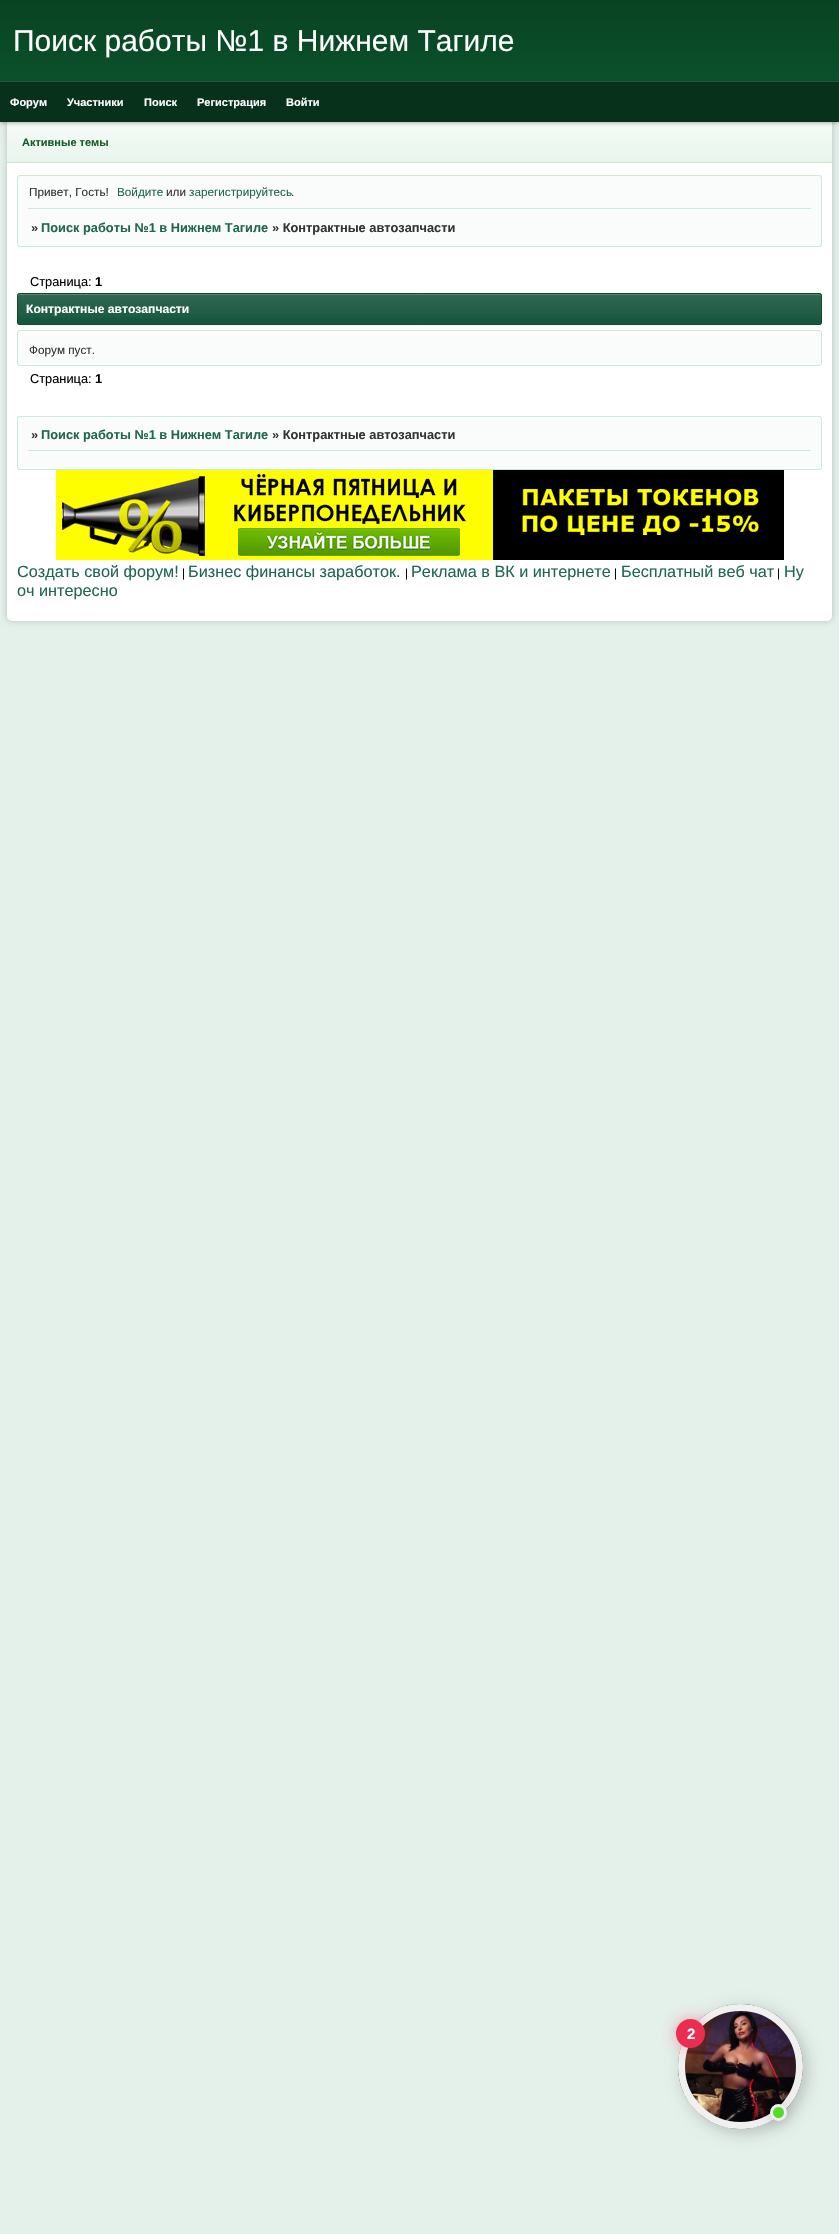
void draw(SkCanvas* canvas) {
    SkPaint paint;
    paint.setAntiAlias(true);
    auto face = [&](const char* family, int weight, float size, bool italic = false) {
        SkFontStyle style(weight, SkFontStyle::kNormal_Width,
            italic ? SkFontStyle::kItalic_Slant : SkFontStyle::kUpright_Slant);
        SkFont result(fontMgr->matchFamilyStyle(family, style), size);
        result.setSubpixel(true);
        return result;
    };
    auto write = [&](const char* s, float x, float y, const SkFont& font, SkColor color) {
        SkPaint ink(SkColor4f::FromColor(color));
        ink.setAntiAlias(true);
        canvas->drawString(s, x, y, font, ink);
    };
    auto block = [&](float x, float y, float w, float h, SkColor color) {
        SkPaint ink(SkColor4f::FromColor(color));
        ink.setAntiAlias(true);
        canvas->drawRect(SkRect::MakeXYWH(x, y, w, h), ink);
    };
    auto card = [&](float x, float y, float w, float h, float radius, SkColor color) {
        SkPaint ink(SkColor4f::FromColor(color));
        ink.setAntiAlias(true);
        canvas->drawRoundRect(SkRect::MakeXYWH(x, y, w, h), radius, radius, ink);
    };
    auto paste = [&](const char* path, float x, float y, float w, float h) {
        auto image = SkImages::DeferredFromEncodedData(SkData::MakeFromFileName(path));
        canvas->drawImageRect(image, SkRect::MakeXYWH(x, y, w, h), SkSamplingOptions());
    };
    canvas->clear(SkColorSetRGB(228, 240, 234));
    paint.setColor(SkColorSetARGB(51, 0, 0, 0));
    paint.setMaskFilter(SkMaskFilter::MakeBlur(kNormal_SkBlurStyle, 3));
    canvas->drawRoundRect(SkRect::MakeXYWH(7, 0, 825, 621), 5, 5, paint);
    paint.setMaskFilter(nullptr);
    card(7, 0, 825, 621, 5, SK_ColorWHITE);
    {
        const SkColor colors[] = {SkColorSetRGB(9, 66, 34), SkColorSetRGB(11, 82, 43)};
        const float stops[] = {0, 0.7f};
        const SkPoint ends[] = {{420, 0}, {420, 122}};
        paint.setShader(SkGradientShader::MakeLinear(ends, colors, stops, 2, SkTileMode::kClamp));
        paint.setAlpha(255);
    }
    canvas->drawRect(SkRect::MakeXYWH(0, 0, 839, 81), paint);
    auto kFont1 = face("Liberation Sans", 400, 30);
    write("Поиск работы №1 в Нижнем Тагиле", 13, 51, kFont1, SK_ColorWHITE);
    {
        const SkColor colors[] = {SkColorSetRGB(246, 251, 247), SkColorSetRGB(232, 245, 236)};
        const float stops[] = {0, 1};
        const SkPoint ends[] = {{420, 122}, {420, 162}};
        paint.setShader(SkGradientShader::MakeLinear(ends, colors, stops, 2, SkTileMode::kClamp));
        paint.setAlpha(255);
    }
    canvas->drawRect(SkRect::MakeXYWH(7, 122, 825, 40), paint);
    paint.setShader(nullptr);
    paint.setColor(SkColorSetARGB(77, 0, 0, 0));
    paint.setMaskFilter(SkMaskFilter::MakeBlur(kNormal_SkBlurStyle, 2));
    canvas->drawRect(SkRect::MakeXYWH(0, 83, 839, 40), paint);
    paint.setMaskFilter(nullptr);
    block(0, 81, 839, 1, SkColorSetRGB(30, 90, 57));
    block(0, 82, 839, 40, SkColorSetRGB(7, 49, 26));
    auto kFont2 = face("Liberation Sans", 700, 11);
    write("Форум", 10, 106, kFont2, SK_ColorWHITE);
    write("Участники", 67, 106, kFont2, SK_ColorWHITE);
    write("Поиск", 144, 106, kFont2, SK_ColorWHITE);
    write("Регистрация", 197, 106, kFont2, SK_ColorWHITE);
    write("Войти", 286, 106, kFont2, SK_ColorWHITE);
    block(7, 162, 825, 1, SkColorSetRGB(201, 235, 211));
    write("Активные темы", 22, 146, kFont2, SkColorSetRGB(25, 92, 43));
    paint.setColor(SkColorSetRGB(250, 252, 251));
    canvas->drawPath(SkPathBuilder().moveTo(20, 175).lineTo(819, 175).cubicTo(820.5f, 175, 822, 176.5f, 822, 178).lineTo(822, 210).lineTo(17, 210).lineTo(17, 178).cubicTo(17, 176.5f, 18.5f, 175, 20, 175).close().detach(), paint);
    paint.setColor(SkColorSetRGB(201, 235, 216));
    canvas->drawPath(SkPathBuilder(SkPathFillType::kEvenOdd).moveTo(20, 175).lineTo(819, 175).cubicTo(821, 175, 822, 176, 822, 178).lineTo(822, 210).lineTo(17, 210).lineTo(17, 178).cubicTo(17, 176, 18, 175, 20, 175).close().moveTo(20, 176).lineTo(819, 176).cubicTo(820, 176, 821, 177, 821, 178).lineTo(821, 210).lineTo(18, 210).lineTo(18, 178).cubicTo(18, 177, 19, 176, 20, 176).close().detach(), paint);
    auto kFont3 = face("Liberation Sans", 400, 11.75f);
    write("Привет, Гость!", 29, 196, kFont3, SkColorSetRGB(51, 51, 51));
    write("Войдите", 117, 196, kFont3, SkColorSetRGB(32, 103, 80));
    write("или", 166, 196, kFont3, SkColorSetRGB(51, 51, 51));
    write("зарегистрируйтесь", 189, 196, kFont3, SkColorSetRGB(32, 103, 80));
    write(".", 291, 196, kFont3, SkColorSetRGB(51, 51, 51));
    paint.setColor(SkColorSetRGB(250, 252, 251));
    canvas->drawPath(SkPathBuilder().moveTo(17, 208).lineTo(822, 208).lineTo(822, 244).cubicTo(822, 245.5f, 820.5f, 247, 819, 247).lineTo(20, 247).cubicTo(18.5f, 247, 17, 245.5f, 17, 244).close().detach(), paint);
    paint.setColor(SkColorSetRGB(201, 235, 216));
    canvas->drawPath(SkPathBuilder(SkPathFillType::kEvenOdd).moveTo(17, 208).lineTo(822, 208).lineTo(822, 244).cubicTo(822, 246, 821, 247, 819, 247).lineTo(20, 247).cubicTo(18, 247, 17, 246, 17, 244).close().moveTo(18, 208).lineTo(821, 208).lineTo(821, 244).cubicTo(821, 245, 820, 246, 819, 246).lineTo(20, 246).cubicTo(19, 246, 18, 245, 18, 244).close().detach(), paint);
    block(28, 208, 783, 1, SkColorSetRGB(201, 235, 218));
    auto kFont4 = face("Liberation Sans", 700, 12.8f);
    write("»", 31, 232, kFont4, SkColorSetRGB(51, 51, 51));
    write("Поиск работы №1 в Нижнем Тагиле", 41, 232, kFont4, SkColorSetRGB(32, 103, 80));
    write("» Контрактные автозапчасти", 272, 232, kFont4, SkColorSetRGB(51, 51, 51));
    auto kFont5 = face("Liberation Sans", 400, 12.8f);
    write("Страница:", 30, 286, kFont5, SK_ColorBLACK);
    write("1", 95, 286, kFont4, SK_ColorBLACK);
    card(17, 293, 805, 32, 3, SkColorSetRGB(23, 86, 63));
    {
        const SkColor colors[] = {SkColorSetARGB(26, 255, 255, 255), SkColorSetARGB(0, 255, 255, 255)};
        const float stops[] = {0, 1};
        const SkPoint ends[] = {{420, 294}, {420, 324}};
        paint.setShader(SkGradientShader::MakeLinear(ends, colors, stops, 2, SkTileMode::kClamp));
        paint.setAlpha(255);
    }
    canvas->drawRect(SkRect::MakeXYWH(17, 294, 805, 24), paint);
    paint.setShader(nullptr);
    paint.setColor(SkColorSetRGB(88, 133, 116));
    canvas->drawPath(SkPathBuilder().moveTo(20, 295).lineTo(819, 295).cubicTo(820, 295, 821, 296, 821, 297).cubicTo(821, 296, 821, 294, 819, 294).lineTo(20, 294).cubicTo(18, 294, 18, 296, 18, 297).cubicTo(18, 296, 19, 295, 20, 295).close().detach(), paint);
    paint.setStyle(SkPaint::kStroke_Style);
    paint.setStrokeWidth(1);
    paint.setColor(SkColorSetRGB(19, 74, 41));
    canvas->drawRoundRect(SkRect::MakeXYWH(17.5f, 293.5f, 804, 31), 2.5f, 2.5f, paint);
    auto kFont6 = face("Liberation Sans", 700, 12.1f);
    write("Контрактные автозапчасти", 26, 313, kFont6, SK_ColorWHITE);
    paint.setStyle(SkPaint::kFill_Style);
    paint.setColor(SkColorSetRGB(250, 252, 251));
    canvas->drawRoundRect(SkRect::MakeXYWH(17.5f, 330.5f, 804, 35), 2.5f, 2.5f, paint);
    paint.setStyle(SkPaint::kStroke_Style);
    paint.setColor(SkColorSetRGB(201, 235, 215));
    canvas->drawRoundRect(SkRect::MakeXYWH(17.5f, 330.5f, 804, 35), 2.5f, 2.5f, paint);
    write("Форум пуст.", 29, 354, kFont3, SkColorSetRGB(51, 51, 51));
    write("Страница:", 30, 383, kFont5, SK_ColorBLACK);
    write("1", 95, 383, kFont4, SK_ColorBLACK);
    paint.setStyle(SkPaint::kFill_Style);
    paint.setColor(SkColorSetRGB(250, 252, 251));
    canvas->drawPath(SkPathBuilder().moveTo(17, 450).lineTo(822, 450).lineTo(822, 467).cubicTo(822, 468.5f, 820.5f, 470, 819, 470).lineTo(20, 470).cubicTo(18.5f, 470, 17, 468.5f, 17, 467).close().detach(), paint);
    paint.setColor(SkColorSetRGB(201, 235, 216));
    canvas->drawPath(SkPathBuilder(SkPathFillType::kEvenOdd).moveTo(17, 450).lineTo(822, 450).lineTo(822, 467).cubicTo(822, 469, 821, 470, 819, 470).lineTo(20, 470).cubicTo(18, 470, 17, 469, 17, 467).close().moveTo(18, 450).lineTo(821, 450).lineTo(821, 467).cubicTo(821, 468, 820, 469, 819, 469).lineTo(20, 469).cubicTo(19, 469, 18, 468, 18, 467).close().detach(), paint);
    paint.setColor(SkColorSetRGB(250, 252, 251));
    canvas->drawPath(SkPathBuilder().moveTo(20, 416).lineTo(819, 416).cubicTo(820.5f, 416, 822, 417.5f, 822, 419).lineTo(822, 452).lineTo(17, 452).lineTo(17, 419).cubicTo(17, 417.5f, 18.5f, 416, 20, 416).close().detach(), paint);
    paint.setColor(SkColorSetRGB(201, 235, 216));
    canvas->drawPath(SkPathBuilder(SkPathFillType::kEvenOdd).moveTo(20, 416).lineTo(819, 416).cubicTo(821, 416, 822, 417, 822, 419).lineTo(822, 452).lineTo(17, 452).lineTo(17, 419).cubicTo(17, 417, 18, 416, 20, 416).close().moveTo(20, 417).lineTo(819, 417).cubicTo(820, 417, 821, 418, 821, 419).lineTo(821, 452).lineTo(18, 452).lineTo(18, 419).cubicTo(18, 418, 19, 417, 20, 417).close().detach(), paint);
    write("»", 31, 439, kFont4, SkColorSetRGB(51, 51, 51));
    write("Поиск работы №1 в Нижнем Тагиле", 41, 439, kFont4, SkColorSetRGB(32, 103, 80));
    write("» Контрактные автозапчасти", 272, 439, kFont4, SkColorSetRGB(51, 51, 51));
    block(28, 450, 783, 1, SkColorSetRGB(201, 235, 218));
    paste("pic1.png", 56, 470, 728, 90);
    auto kFont7 = face("Liberation Sans", 400, 16.25f);
    write("Создать свой форум!", 17, 577, kFont7, SkColorSetRGB(32, 103, 80));
    write("|", 182, 577, kFont3, SK_ColorBLACK);
    write("Бизнес финансы заработок.", 188, 577, kFont7, SkColorSetRGB(32, 103, 80));
    write("|", 405, 577, kFont3, SK_ColorBLACK);
    write("Реклама в ВК и интернете", 411, 577, kFont7, SkColorSetRGB(32, 103, 80));
    write("|", 614, 577, kFont3, SK_ColorBLACK);
    write("Бесплатный веб чат", 621, 577, kFont7, SkColorSetRGB(32, 103, 80));
    write("|", 777, 577, kFont3, SK_ColorBLACK);
    write("Ну", 784, 577, kFont7, SkColorSetRGB(32, 103, 80));
    write("оч интересно", 17, 596, kFont7, SkColorSetRGB(32, 103, 80));
    paint.setColor(SkColorSetARGB(51, 0, 0, 0));
    paint.setMaskFilter(SkMaskFilter::MakeBlur(kNormal_SkBlurStyle, 8));
    canvas->drawRoundRect(SkRect::MakeXYWH(682, 2008, 125, 125), 62.5f, 62.5f, paint);
    paint.setMaskFilter(nullptr);
    paste("pic2.png", 678, 2004, 125, 125);
    paint.setStyle(SkPaint::kStroke_Style);
    paint.setStrokeWidth(7);
    paint.setColor(SkColorSetRGB(240, 240, 240));
    canvas->drawCircle(740.5f, 2066.5f, 59, paint);
    paint.setStyle(SkPaint::kFill_Style);
    paint.setColor(SkColorSetARGB(102, 235, 45, 81));
    paint.setMaskFilter(SkMaskFilter::MakeBlur(kNormal_SkBlurStyle, 8));
    canvas->drawRoundRect(SkRect::MakeXYWH(676, 2019, 29, 29), 14.5f, 14.5f, paint);
    paint.setMaskFilter(nullptr);
    paint.setColor(SkColorSetRGB(235, 45, 81));
    canvas->drawCircle(690.5f, 2033.5f, 14.5f, paint);
    auto kFont8 = face("Liberation Sans", 700, 15);
    write("2", 687, 2039, kFont8, SK_ColorWHITE);
    paint.setColor(SkColorSetARGB(51, 0, 0, 0));
    paint.setMaskFilter(SkMaskFilter::MakeBlur(kNormal_SkBlurStyle, 8));
    canvas->drawRoundRect(SkRect::MakeXYWH(770, 2104, 17, 17), 8.5f, 8.5f, paint);
    paint.setMaskFilter(nullptr);
    paint.setColor(SkColorSetRGB(82, 221, 38));
    canvas->drawCircle(778.5f, 2112.5f, 7, paint);
    paint.setStyle(SkPaint::kStroke_Style);
    paint.setStrokeWidth(3);
    paint.setColor(SkColorSetRGB(240, 240, 240));
    canvas->drawCircle(778.5f, 2112.5f, 7, paint);
}
